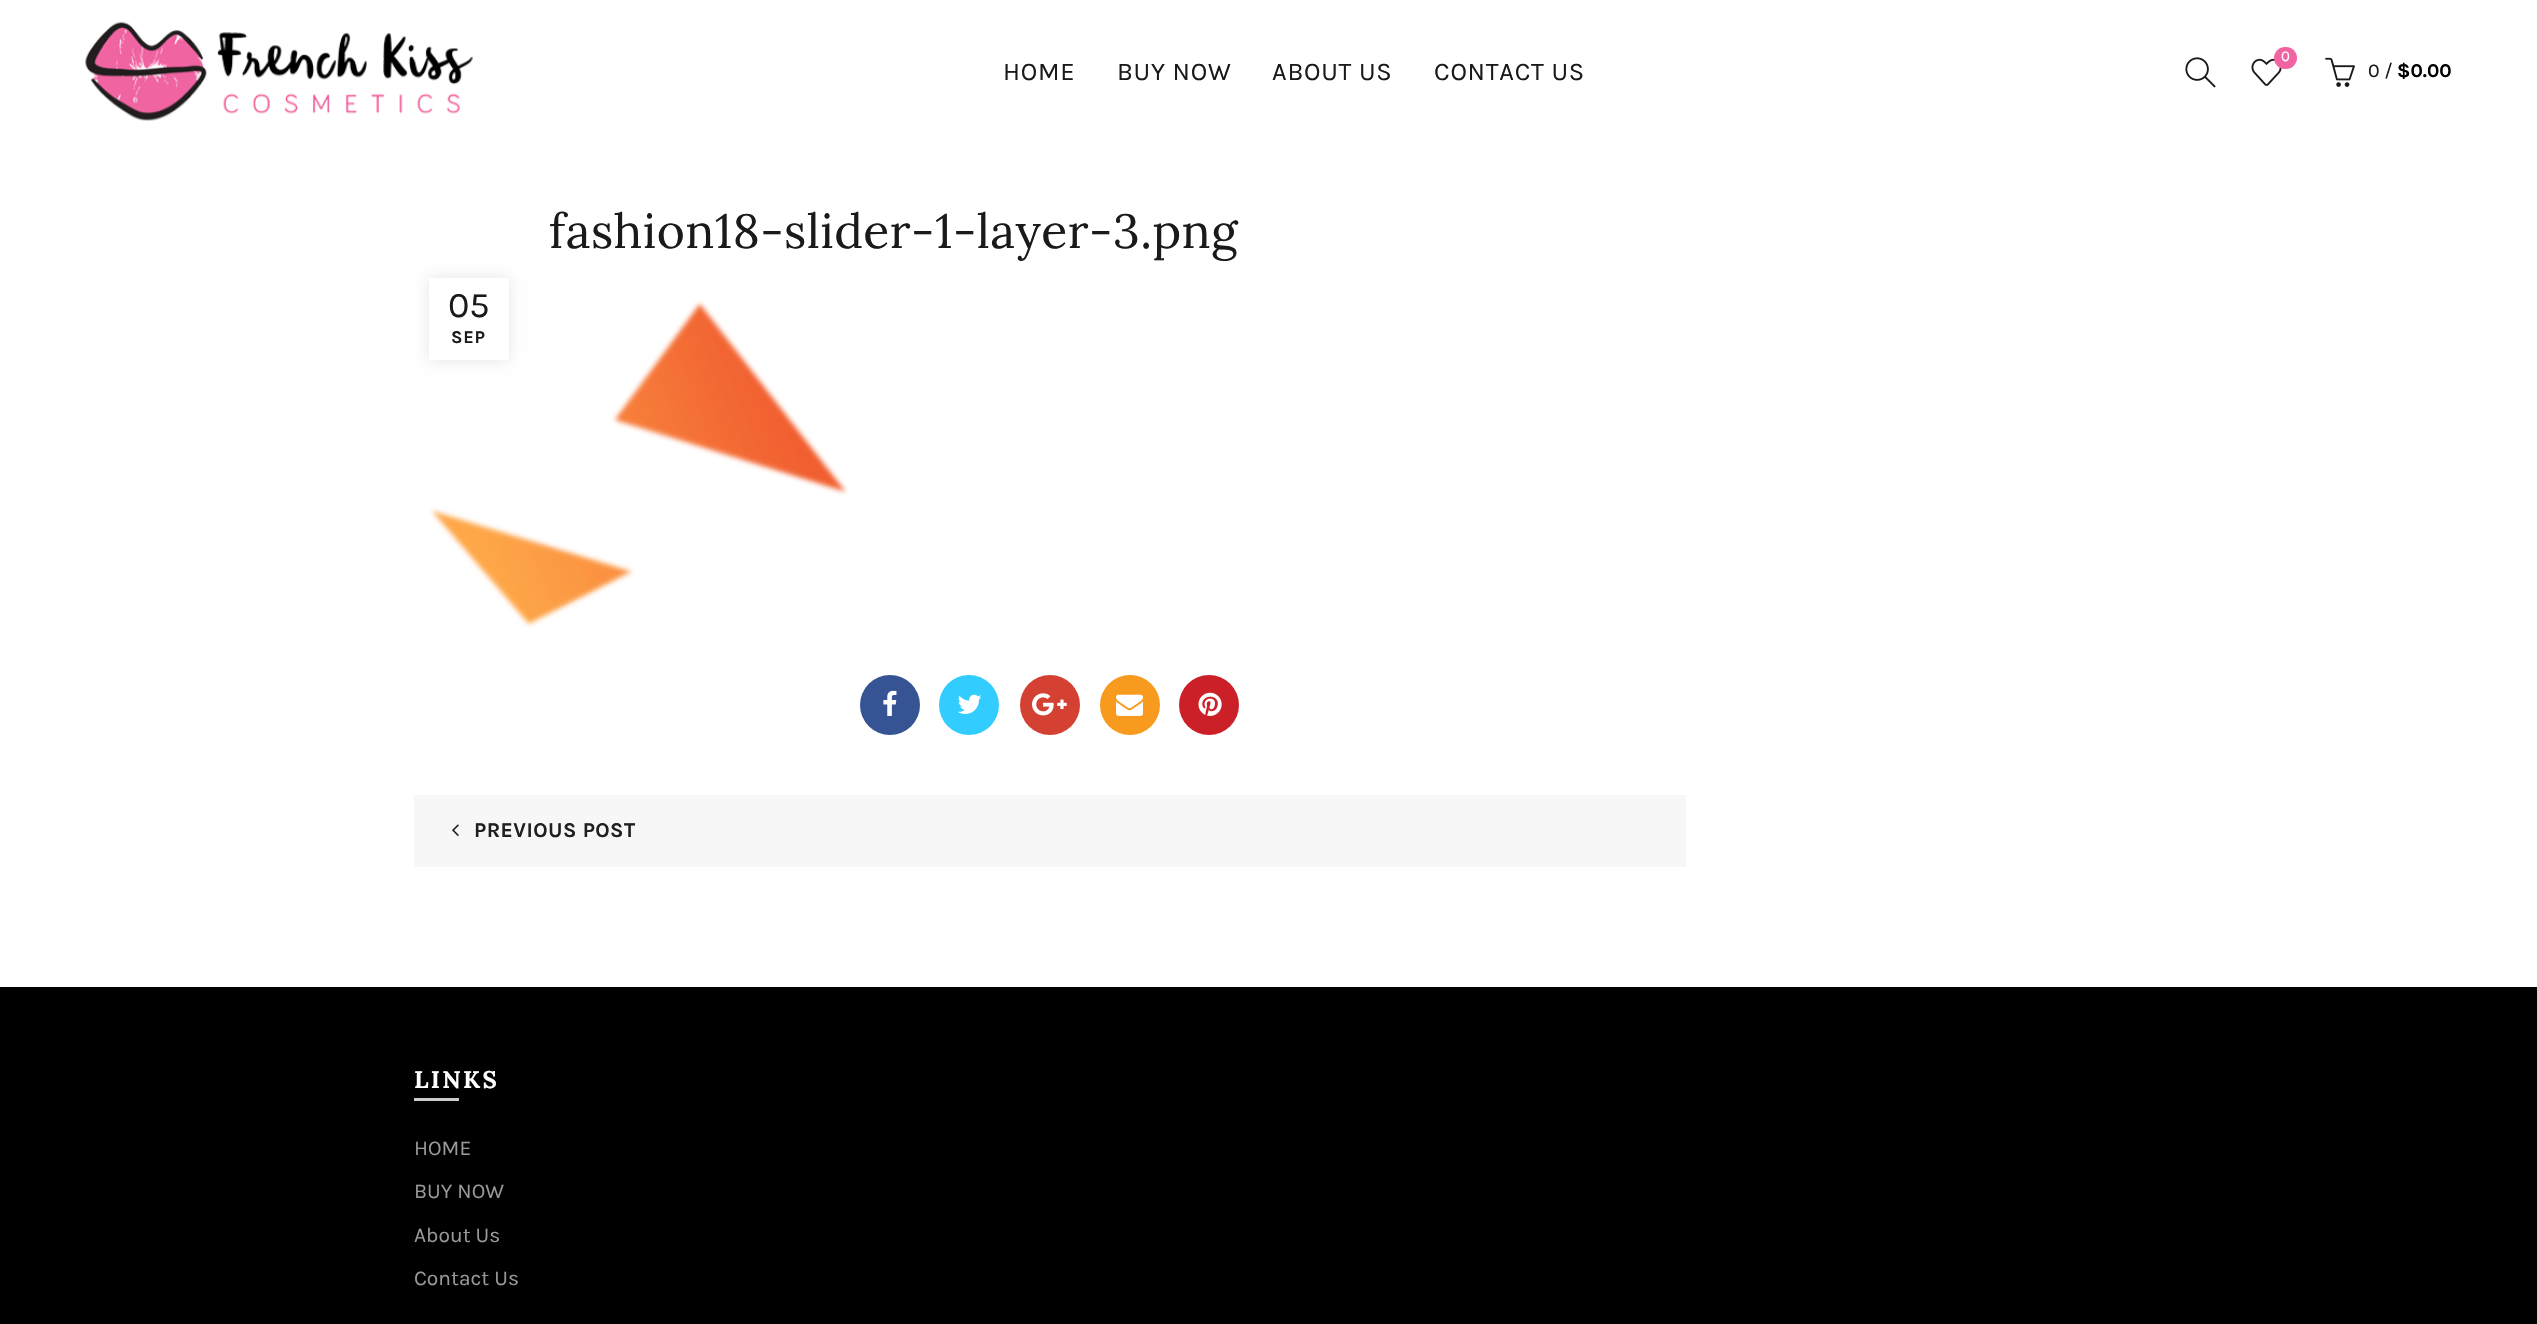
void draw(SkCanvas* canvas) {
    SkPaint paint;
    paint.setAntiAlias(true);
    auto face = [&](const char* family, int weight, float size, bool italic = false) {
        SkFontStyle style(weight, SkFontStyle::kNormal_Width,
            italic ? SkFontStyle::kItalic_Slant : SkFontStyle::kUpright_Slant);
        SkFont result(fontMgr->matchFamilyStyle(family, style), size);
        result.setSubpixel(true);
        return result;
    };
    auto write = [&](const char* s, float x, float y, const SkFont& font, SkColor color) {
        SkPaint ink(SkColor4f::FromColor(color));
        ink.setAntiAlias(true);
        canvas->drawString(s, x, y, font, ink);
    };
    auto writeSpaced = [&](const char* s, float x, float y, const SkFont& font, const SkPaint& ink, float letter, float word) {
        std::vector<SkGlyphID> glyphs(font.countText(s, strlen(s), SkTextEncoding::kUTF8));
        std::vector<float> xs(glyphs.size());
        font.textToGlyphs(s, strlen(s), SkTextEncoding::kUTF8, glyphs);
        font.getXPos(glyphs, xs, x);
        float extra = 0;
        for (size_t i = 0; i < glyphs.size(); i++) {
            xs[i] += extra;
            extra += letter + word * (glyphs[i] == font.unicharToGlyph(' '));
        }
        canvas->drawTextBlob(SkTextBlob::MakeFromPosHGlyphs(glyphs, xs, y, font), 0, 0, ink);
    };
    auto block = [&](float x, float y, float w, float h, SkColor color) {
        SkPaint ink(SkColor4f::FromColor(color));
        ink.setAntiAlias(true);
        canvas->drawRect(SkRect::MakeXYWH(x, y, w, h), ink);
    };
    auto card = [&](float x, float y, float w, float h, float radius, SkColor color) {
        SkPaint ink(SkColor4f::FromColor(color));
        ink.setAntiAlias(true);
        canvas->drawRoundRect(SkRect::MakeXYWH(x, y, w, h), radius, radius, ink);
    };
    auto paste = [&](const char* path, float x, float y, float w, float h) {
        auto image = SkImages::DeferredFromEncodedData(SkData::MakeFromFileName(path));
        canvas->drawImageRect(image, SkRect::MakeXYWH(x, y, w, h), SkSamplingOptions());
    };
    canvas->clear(SK_ColorWHITE);
    paste("pic1.png", 85, 21, 388, 100);
    auto kFont1 = face("Karla", 400, 25.5f);
    paint.setColor(SkColorSetRGB(26, 26, 26));
    writeSpaced("HOME", 1003, 80, kFont1, paint, 0.75f, 0);
    writeSpaced("BUY NOW", 1117, 80, kFont1, paint, 0.75f, 0);
    writeSpaced("ABOUT US", 1272, 80, kFont1, paint, 0.75f, 0);
    writeSpaced("CONTACT US", 1434, 80, kFont1, paint, 0.75f, 0);
    paste("pic2.png", 2185, 57, 31, 31);
    paste("pic3.png", 2251, 58, 31, 28);
    card(2274, 47, 23, 22, 11, SkColorSetRGB(240, 100, 161));
    auto kFont2 = face("Karla", 400, 15);
    write("0", 2281, 61, kFont2, SK_ColorWHITE);
    paste("pic4.png", 2325, 57, 30, 30);
    auto kFont3 = face("Karla", 400, 19.5f);
    write("0 /", 2368, 77, kFont3, SkColorSetRGB(26, 26, 26));
    auto kFont4 = face("Karla", 700, 19.5f);
    write("$0.00", 2397, 77, kFont4, SK_ColorBLACK);
    auto kFont5 = face("Lora", 400, 48);
    writeSpaced("fashion18-slider-1-layer-3.png", 549, 248, kFont5, paint, 0.45f, 0);
    paste("pic5.png", 429, 300, 420, 328);
    paint.setColor(SkColorSetARGB(26, 0, 0, 0));
    paint.setMaskFilter(SkMaskFilter::MakeBlur(kNormal_SkBlurStyle, 7));
    canvas->drawRect(SkRect::MakeXYWH(429, 278, 80, 82), paint);
    paint.setMaskFilter(nullptr);
    block(429, 278, 80, 82, SK_ColorWHITE);
    auto kFont6 = face("Karla", 400, 36);
    write("05", 448, 317, kFont6, SkColorSetRGB(26, 26, 26));
    auto kFont7 = face("Karla", 700, 18);
    paint.setColor(SkColorSetRGB(26, 26, 26));
    writeSpaced("SEP", 451, 343, kFont7, paint, 0.75f, 0);
    paint.setColor(SkColorSetRGB(54, 84, 147));
    canvas->drawCircle(890, 705, 30, paint);
    paste("pic6.png", 883, 690, 14, 26);
    paint.setColor(SkColorSetRGB(51, 204, 255));
    canvas->drawCircle(969, 705, 30, paint);
    paste("pic7.png", 957, 694, 25, 20);
    paint.setColor(SkColorSetRGB(212, 65, 50));
    canvas->drawCircle(1050, 705, 30, paint);
    paste("pic8.png", 1032, 693, 35, 23);
    paint.setColor(SkColorSetRGB(248, 154, 30));
    canvas->drawCircle(1130, 705, 30, paint);
    paste("pic9.png", 1116, 694, 27, 22);
    paint.setColor(SkColorSetRGB(203, 32, 39));
    canvas->drawCircle(1209, 705, 30, paint);
    paste("pic10.png", 1198, 692, 24, 24);
    block(414, 795, 1272, 72, SkColorSetRGB(247, 247, 247));
    paste("pic11.png", 452, 824, 7, 12);
    auto kFont8 = face("Karla", 700, 21);
    paint.setColor(SkColorSetRGB(32, 32, 32));
    writeSpaced("PREVIOUS POST", 474, 837, kFont8, paint, 0.45f, 0);
    block(0, 987, 2537, 337, SK_ColorBLACK);
    auto kFont9 = face("Sumana", 700, 24);
    paint.setColor(SK_ColorWHITE);
    writeSpaced("LINKS", 414, 1088, kFont9, paint, 2.25f, 0);
    block(414, 1098, 45, 3, SkColorSetRGB(204, 204, 204));
    auto kFont10 = face("Karla", 400, 21);
    write("HOME", 414, 1155, kFont10, SkColorSetRGB(153, 153, 153));
    write("BUY NOW", 414, 1198, kFont10, SkColorSetRGB(153, 153, 153));
    write("About Us", 414, 1242, kFont10, SkColorSetRGB(153, 153, 153));
    write("Contact Us", 414, 1285, kFont10, SkColorSetRGB(153, 153, 153));
}
